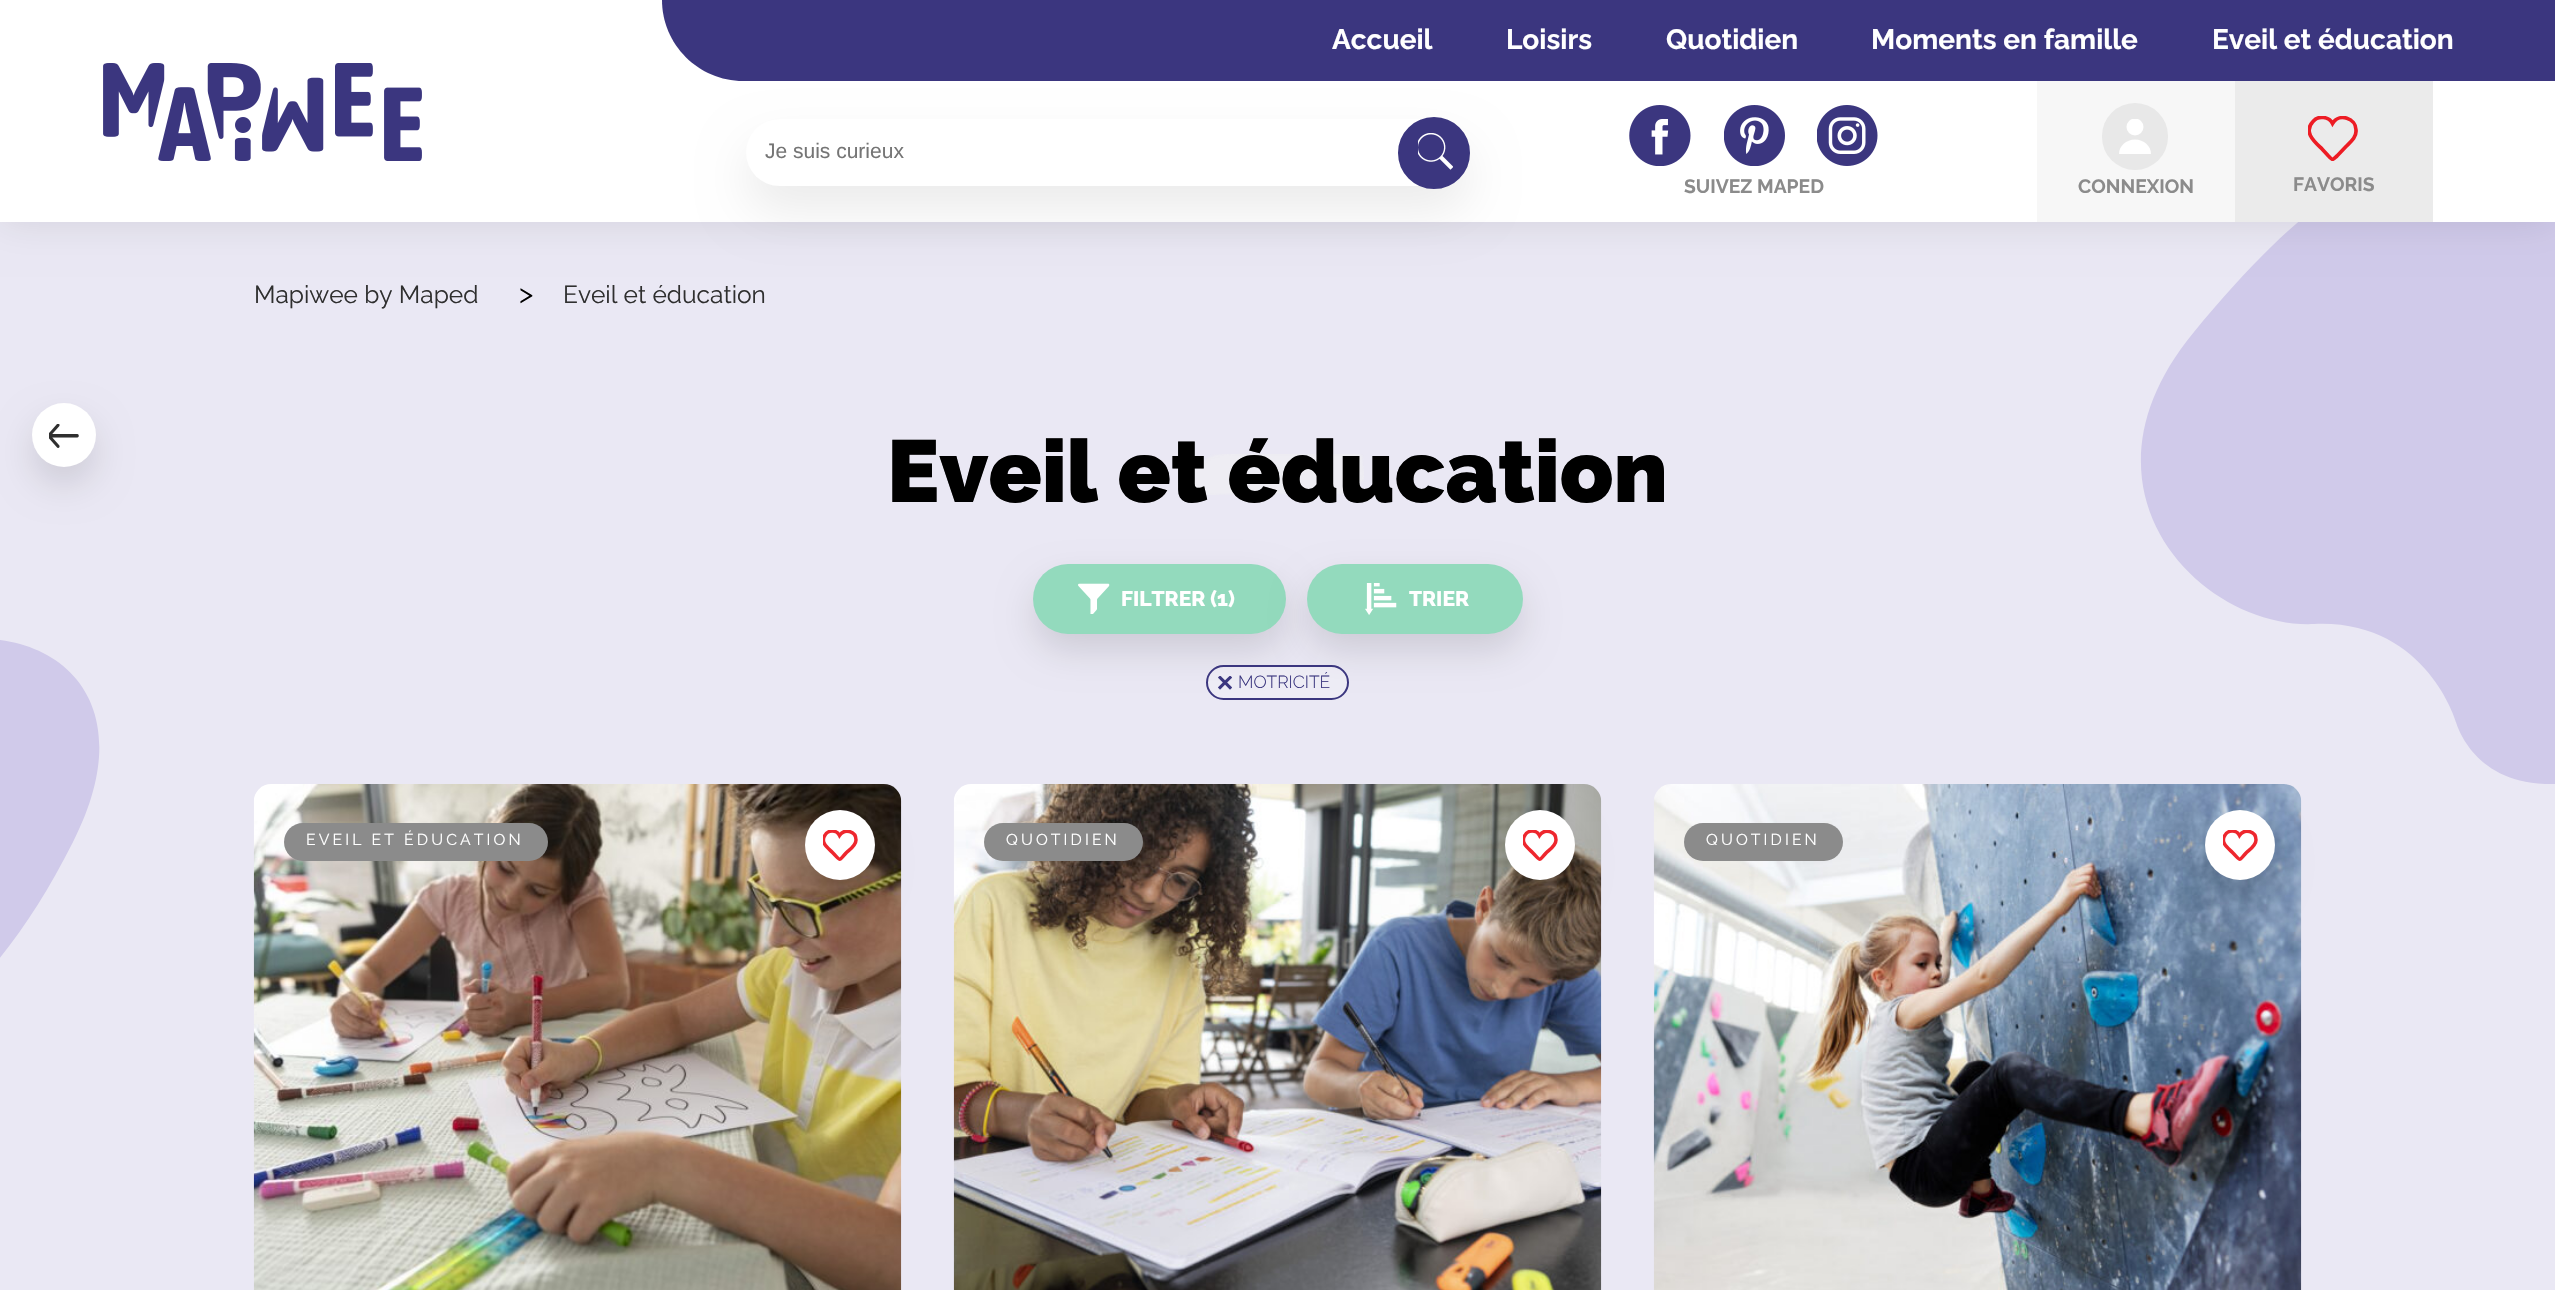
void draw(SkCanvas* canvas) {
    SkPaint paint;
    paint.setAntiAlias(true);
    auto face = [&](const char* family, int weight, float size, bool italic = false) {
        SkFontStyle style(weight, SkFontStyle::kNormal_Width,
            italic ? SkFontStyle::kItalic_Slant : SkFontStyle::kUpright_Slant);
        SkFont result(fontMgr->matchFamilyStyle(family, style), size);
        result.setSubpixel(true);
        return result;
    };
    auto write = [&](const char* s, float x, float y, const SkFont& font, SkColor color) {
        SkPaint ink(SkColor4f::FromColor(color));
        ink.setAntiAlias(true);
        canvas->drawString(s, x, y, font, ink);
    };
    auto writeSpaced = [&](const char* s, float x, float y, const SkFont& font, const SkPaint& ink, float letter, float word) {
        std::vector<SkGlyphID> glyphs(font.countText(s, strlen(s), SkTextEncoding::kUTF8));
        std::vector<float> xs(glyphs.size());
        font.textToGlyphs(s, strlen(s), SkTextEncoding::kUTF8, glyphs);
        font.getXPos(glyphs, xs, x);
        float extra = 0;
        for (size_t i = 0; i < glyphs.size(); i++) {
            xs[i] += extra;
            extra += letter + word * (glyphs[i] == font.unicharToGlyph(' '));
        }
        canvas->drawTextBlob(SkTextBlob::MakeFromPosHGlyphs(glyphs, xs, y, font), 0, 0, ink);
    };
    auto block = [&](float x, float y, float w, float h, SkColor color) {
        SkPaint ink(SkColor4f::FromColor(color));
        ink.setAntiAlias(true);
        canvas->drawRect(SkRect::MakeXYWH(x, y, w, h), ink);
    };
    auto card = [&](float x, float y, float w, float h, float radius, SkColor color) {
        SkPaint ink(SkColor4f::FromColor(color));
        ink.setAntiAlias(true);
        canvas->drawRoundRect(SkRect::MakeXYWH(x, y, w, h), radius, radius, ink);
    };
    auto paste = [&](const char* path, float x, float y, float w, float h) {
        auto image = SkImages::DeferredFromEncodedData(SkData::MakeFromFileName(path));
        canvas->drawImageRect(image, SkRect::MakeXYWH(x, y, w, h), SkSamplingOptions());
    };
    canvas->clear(SkColorSetRGB(234, 232, 244));
    canvas->save();
    canvas->clipRect(SkRect::MakeXYWH(2140, 140, 415, 644));
    paint.setColor(SkColorSetRGB(208, 202, 234));
    canvas->drawPath(SkPathBuilder(SkPathFillType::kEvenOdd).moveTo(2456, 722).cubicTo(2456, 722, 2426, 619, 2314, 624).cubicTo(2202, 629, 2063, 490, 2194, 332).cubicTo(2324, 174, 2419, 119, 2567, 149).cubicTo(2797, 196, 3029, 580, 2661, 754).cubicTo(2486, 837, 2456, 722, 2456, 722).close().detach(), paint);
    canvas->restore();
    paint.setColor(SkColorSetARGB(26, 0, 0, 0));
    paint.setMaskFilter(SkMaskFilter::MakeBlur(kNormal_SkBlurStyle, 18.5f));
    canvas->drawRect(SkRect::MakeXYWH(0, 0, 2555, 222), paint);
    paint.setMaskFilter(nullptr);
    block(0, 0, 2555, 222, SK_ColorWHITE);
    paint.setColor(SkColorSetARGB(20, 0, 0, 0));
    paint.setMaskFilter(SkMaskFilter::MakeBlur(kNormal_SkBlurStyle, 23.5f));
    canvas->drawRoundRect(SkRect::MakeXYWH(746, 144, 724, 66), 33, 33, paint);
    paint.setMaskFilter(nullptr);
    paint.setColor(SkColorSetRGB(59, 54, 127));
    canvas->drawPath(SkPathBuilder().moveTo(662, 0).lineTo(2555, 0).lineTo(2555, 81).lineTo(743, 81).cubicTo(698.5f, 81, 662, 44.5f, 662, 0).close().detach(), paint);
    auto kFont1 = face("Raleway", 700, 28);
    write("Accueil", 1332, 49, kFont1, SK_ColorWHITE);
    write("Loisirs", 1506, 49, kFont1, SK_ColorWHITE);
    write("Quotidien", 1666, 49, kFont1, SK_ColorWHITE);
    write("Moments en famille", 1871, 49, kFont1, SK_ColorWHITE);
    write("Eveil et éducation", 2212, 49, kFont1, SK_ColorWHITE);
    paste("pic1.png", 103, 63, 319, 98);
    card(746, 119, 724, 67, 33.5f, SK_ColorWHITE);
    auto kFont2 = face("Liberation Sans", 400, 21);
    write("Je suis curieux", 765, 158, kFont2, SkColorSetRGB(117, 117, 117));
    canvas->drawCircle(1434, 153, 35, paint);
    paint.setStyle(SkPaint::kStroke_Style);
    paint.setStrokeWidth(2);
    canvas->drawCircle(1434, 153, 35, paint);
    paste("pic2.png", 1418, 133, 35, 37);
    paste("pic3.png", 1629, 105, 62, 61);
    paste("pic4.png", 1724, 105, 61, 61);
    paste("pic5.png", 1817, 105, 61, 61);
    auto kFont3 = face("Raleway", 700, 19.25f);
    write("SUIVEZ MAPED", 1684, 193, kFont3, SkColorSetRGB(139, 139, 139));
    block(2037, 81, 198, 141, SkColorSetRGB(247, 247, 247));
    card(2102, 103, 66, 67, 33, SkColorSetRGB(232, 232, 232));
    canvas->save();
    canvas->clipRect(SkRect::MakeXYWH(2119, 119, 32, 35));
    paint.setStyle(SkPaint::kFill_Style);
    paint.setColor(SK_ColorWHITE);
    canvas->drawCircle(2135, 127, 8.5f, paint);
    canvas->restore();
    canvas->drawPath(SkPathBuilder().moveTo(2135, 139.5f).cubicTo(2126, 139.5f, 2119, 146, 2119, 154).lineTo(2151, 154).cubicTo(2151, 146, 2144, 139.5f, 2135, 139.5f).close().detach(), paint);
    write("CONNEXION", 2078, 193, kFont3, SkColorSetRGB(139, 139, 139));
    block(2235, 81, 198, 141, SkColorSetRGB(235, 235, 235));
    canvas->save();
    canvas->clipRect(SkRect::MakeXYWH(2308, 116, 51, 45));
    paint.setStyle(SkPaint::kStroke_Style);
    paint.setStrokeWidth(3.7f);
    paint.setColor(SkColorSetRGB(237, 28, 36));
    canvas->drawPath(SkPathBuilder().moveTo(2356, 130.5f).cubicTo(2356.5f, 118, 2339, 112.5f, 2332.5f, 123.5f).cubicTo(2331, 120.5f, 2327.5f, 118, 2323.5f, 117.5f).cubicTo(2319.5f, 117, 2315.5f, 118.5f, 2313, 121.5f).cubicTo(2302.5f, 132.5f, 2315.5f, 142.5f, 2322.5f, 149.5f).lineTo(2328.5f, 156).cubicTo(2333, 160.5f, 2332, 160.5f, 2337, 156).lineTo(2346, 146.5f).cubicTo(2350.5f, 142, 2356.5f, 137.5f, 2356, 130.5f).close().detach(), paint);
    canvas->restore();
    write("FAVORIS", 2293, 191, kFont3, SkColorSetRGB(139, 139, 139));
    auto kFont4 = face("Raleway", 400, 24.5f);
    write("Mapiwee by Maped", 254, 303, kFont4, SkColorSetRGB(47, 47, 47));
    auto kFont5 = face("Raleway", 400, 28);
    write(">", 519, 303, kFont5, SK_ColorBLACK);
    write("Eveil et éducation", 563, 303, kFont4, SkColorSetRGB(47, 47, 47));
    paint.setStyle(SkPaint::kFill_Style);
    paint.setColor(SkColorSetARGB(31, 0, 0, 0));
    paint.setMaskFilter(SkMaskFilter::MakeBlur(kNormal_SkBlurStyle, 17.5f));
    canvas->drawRoundRect(SkRect::MakeXYWH(32, 420, 64, 65), 32, 32, paint);
    paint.setMaskFilter(nullptr);
    paint.setColor(SK_ColorWHITE);
    canvas->drawCircle(64, 435, 32, paint);
    paste("pic6.png", 49, 424, 30, 24);
    paste("pic7.png", 1191, 454, 173, 41);
    auto kFont6 = face("Raleway", 900, 87.5f);
    write("Eveil et éducation", 887, 502, kFont6, SK_ColorBLACK);
    paint.setColor(SkColorSetARGB(31, 0, 0, 0));
    paint.setMaskFilter(SkMaskFilter::MakeBlur(kNormal_SkBlurStyle, 17.5f));
    canvas->drawRoundRect(SkRect::MakeXYWH(1033, 581, 253, 70), 35, 35, paint);
    paint.setMaskFilter(nullptr);
    card(1033, 564, 253, 70, 35, SkColorSetRGB(147, 218, 189));
    paste("pic8.png", 1078, 583, 32, 31);
    auto kFont7 = face("Raleway", 800, 21);
    write("FILTRER (1)", 1121, 606, kFont7, SK_ColorWHITE);
    paint.setMaskFilter(SkMaskFilter::MakeBlur(kNormal_SkBlurStyle, 17.5f));
    canvas->drawRoundRect(SkRect::MakeXYWH(1307, 581, 216, 70), 35, 35, paint);
    paint.setMaskFilter(nullptr);
    card(1307, 564, 216, 70, 35, SkColorSetRGB(147, 218, 189));
    paste("pic9.png", 1365, 583, 32, 32);
    write("TRIER", 1409, 606, kFont7, SK_ColorWHITE);
    paint.setColor(SkColorSetARGB(51, 255, 255, 255));
    canvas->drawRoundRect(SkRect::MakeXYWH(1207, 666, 141, 33), 16.5f, 16.5f, paint);
    paint.setStyle(SkPaint::kStroke_Style);
    paint.setStrokeWidth(2);
    paint.setColor(SkColorSetRGB(59, 54, 127));
    canvas->drawRoundRect(SkRect::MakeXYWH(1207, 666, 141, 33), 16.5f, 16.5f, paint);
    paste("pic10.png", 1218, 676, 14, 14);
    auto kFont8 = face("Raleway", 300, 17.5f);
    write("MOTRICITÉ", 1238, 688, kFont8, SkColorSetRGB(59, 54, 127));
    paint.setStyle(SkPaint::kFill_Style);
    paint.setColor(SkColorSetRGB(208, 202, 234));
    canvas->drawPath(SkPathBuilder(SkPathFillType::kEvenOdd).moveTo(-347, 803).cubicTo(-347, 803, -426, 1047, -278, 1068).cubicTo(-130, 1090, -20, 1026, 73, 842).cubicTo(169, 653, -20, 589, -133, 679).cubicTo(-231, 757, -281, 638, -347, 803).close().detach(), paint);
    paste("pic11.png", 253, 784, 649, 506);
    paint.setColor(SkColorSetARGB(31, 0, 0, 0));
    paint.setMaskFilter(SkMaskFilter::MakeBlur(kNormal_SkBlurStyle, 17.5f));
    canvas->drawRoundRect(SkRect::MakeXYWH(805, 828, 70, 70), 35, 35, paint);
    paint.setMaskFilter(nullptr);
    paint.setColor(SK_ColorWHITE);
    canvas->drawCircle(840, 845, 35, paint);
    canvas->save();
    canvas->clipRect(SkRect::MakeXYWH(823, 830, 35, 31));
    paint.setStyle(SkPaint::kStroke_Style);
    paint.setStrokeWidth(3.5f);
    paint.setColor(SkColorSetRGB(238, 39, 46));
    canvas->drawPath(SkPathBuilder().moveTo(856, 840).cubicTo(856, 831, 844.5f, 828, 839.5f, 835.5f).cubicTo(836.5f, 829.5f, 827.5f, 829.5f, 824.5f, 836).cubicTo(820.5f, 843, 828, 848, 832.5f, 852.5f).cubicTo(841.5f, 861.5f, 838, 861.5f, 846.5f, 852.5f).cubicTo(850, 849.5f, 856, 845.5f, 856, 840).close().detach(), paint);
    canvas->restore();
    card(284, 823, 264, 38, 19, SkColorSetRGB(139, 139, 139));
    auto kFont9 = face("Raleway", 400, 15.75f);
    paint.setStyle(SkPaint::kFill_Style);
    paint.setColor(SK_ColorWHITE);
    writeSpaced("EVEIL ET ÉDUCATION", 306, 845, kFont9, paint, 3.1f, 0);
    paste("pic12.png", 953, 784, 649, 506);
    paint.setColor(SkColorSetARGB(31, 0, 0, 0));
    paint.setMaskFilter(SkMaskFilter::MakeBlur(kNormal_SkBlurStyle, 17.5f));
    canvas->drawRoundRect(SkRect::MakeXYWH(1505, 828, 70, 70), 35, 35, paint);
    paint.setMaskFilter(nullptr);
    paint.setColor(SK_ColorWHITE);
    canvas->drawCircle(1540, 845, 35, paint);
    canvas->save();
    canvas->clipRect(SkRect::MakeXYWH(1523, 830, 35, 31));
    paint.setStyle(SkPaint::kStroke_Style);
    paint.setColor(SkColorSetRGB(238, 39, 46));
    canvas->drawPath(SkPathBuilder().moveTo(1556, 840).cubicTo(1556, 831, 1544.5f, 828, 1539.5f, 835.5f).cubicTo(1536.5f, 829.5f, 1527.5f, 829.5f, 1524.5f, 836).cubicTo(1520.5f, 843, 1528, 848, 1532.5f, 852.5f).cubicTo(1541.5f, 861.5f, 1538, 861.5f, 1546.5f, 852.5f).cubicTo(1550, 849.5f, 1556, 845.5f, 1556, 840).close().detach(), paint);
    canvas->restore();
    card(984, 823, 159, 38, 19, SkColorSetRGB(139, 139, 139));
    paint.setStyle(SkPaint::kFill_Style);
    paint.setColor(SK_ColorWHITE);
    writeSpaced("QUOTIDIEN", 1006, 845, kFont9, paint, 3.1f, 0);
    paste("pic13.png", 1653, 784, 649, 506);
    paint.setColor(SkColorSetARGB(31, 0, 0, 0));
    paint.setMaskFilter(SkMaskFilter::MakeBlur(kNormal_SkBlurStyle, 17.5f));
    canvas->drawRoundRect(SkRect::MakeXYWH(2205, 828, 70, 70), 35, 35, paint);
    paint.setMaskFilter(nullptr);
    paint.setColor(SK_ColorWHITE);
    canvas->drawCircle(2240, 845, 35, paint);
    canvas->save();
    canvas->clipRect(SkRect::MakeXYWH(2223, 830, 35, 31));
    paint.setStyle(SkPaint::kStroke_Style);
    paint.setColor(SkColorSetRGB(238, 39, 46));
    canvas->drawPath(SkPathBuilder().moveTo(2256, 840).cubicTo(2256, 831, 2244.5f, 828, 2239.5f, 835.5f).cubicTo(2236.5f, 829.5f, 2227.5f, 829.5f, 2224.5f, 836).cubicTo(2220.5f, 843, 2228, 848, 2232.5f, 852.5f).cubicTo(2241.5f, 861.5f, 2238, 861.5f, 2246.5f, 852.5f).cubicTo(2250, 849.5f, 2256, 845.5f, 2256, 840).close().detach(), paint);
    canvas->restore();
    card(1684, 823, 159, 38, 19, SkColorSetRGB(139, 139, 139));
    paint.setStyle(SkPaint::kFill_Style);
    paint.setColor(SK_ColorWHITE);
    writeSpaced("QUOTIDIEN", 1706, 845, kFont9, paint, 3.1f, 0);
}
